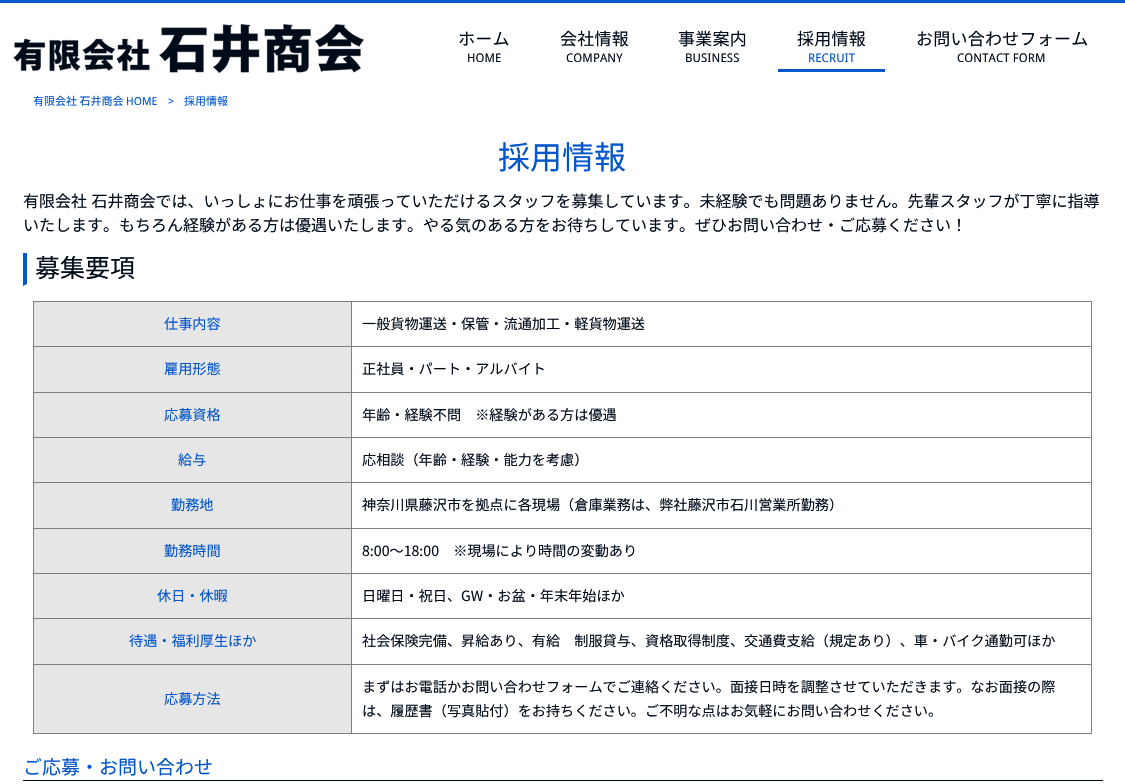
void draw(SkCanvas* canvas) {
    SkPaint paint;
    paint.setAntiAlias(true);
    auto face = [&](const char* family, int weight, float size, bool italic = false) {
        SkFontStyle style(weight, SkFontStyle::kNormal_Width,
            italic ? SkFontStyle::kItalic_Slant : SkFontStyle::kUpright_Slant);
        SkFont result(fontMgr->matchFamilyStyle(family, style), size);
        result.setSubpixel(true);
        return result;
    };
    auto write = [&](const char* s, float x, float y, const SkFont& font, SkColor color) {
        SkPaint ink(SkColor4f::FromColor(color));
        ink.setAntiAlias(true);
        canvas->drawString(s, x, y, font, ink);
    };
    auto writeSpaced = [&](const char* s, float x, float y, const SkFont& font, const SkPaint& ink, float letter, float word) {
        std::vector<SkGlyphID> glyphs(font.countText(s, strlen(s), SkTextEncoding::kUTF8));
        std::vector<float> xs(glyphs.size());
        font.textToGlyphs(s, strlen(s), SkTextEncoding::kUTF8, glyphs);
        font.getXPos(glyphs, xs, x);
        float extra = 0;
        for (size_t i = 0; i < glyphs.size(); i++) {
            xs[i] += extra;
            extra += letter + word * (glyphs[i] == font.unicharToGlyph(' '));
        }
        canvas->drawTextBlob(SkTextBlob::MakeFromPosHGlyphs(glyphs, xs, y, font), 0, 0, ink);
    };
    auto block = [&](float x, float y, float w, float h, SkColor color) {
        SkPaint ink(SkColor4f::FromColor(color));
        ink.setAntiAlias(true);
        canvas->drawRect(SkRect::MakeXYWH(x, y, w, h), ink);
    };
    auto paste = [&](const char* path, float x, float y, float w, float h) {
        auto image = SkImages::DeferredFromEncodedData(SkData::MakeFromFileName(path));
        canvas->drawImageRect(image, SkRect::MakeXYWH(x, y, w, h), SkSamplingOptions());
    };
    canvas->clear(SK_ColorWHITE);
    block(0, 0, 1125, 3, SkColorSetRGB(2, 86, 204));
    paste("pic1.png", 13, 24, 351, 50);
    auto kFont1 = face("Noto Sans JP", 100, 17);
    paint.setColor(SkColorSetRGB(0, 11, 26));
    writeSpaced("ホーム", 458, 45, kFont1, paint, 0.25f, 0);
    auto kFont2 = face("Droid Sans", 400, 12);
    writeSpaced("HOME", 467, 62, kFont2, paint, 0.1f, 0);
    writeSpaced("会社情報", 560, 45, kFont1, paint, 0.25f, 0);
    writeSpaced("COMPANY", 566, 62, kFont2, paint, 0.1f, 0);
    writeSpaced("事業案内", 678, 45, kFont1, paint, 0.25f, 0);
    writeSpaced("BUSINESS", 685, 62, kFont2, paint, 0.1f, 0);
    writeSpaced("採用情報", 797, 45, kFont1, paint, 0.25f, 0);
    paint.setColor(SkColorSetRGB(2, 86, 204));
    writeSpaced("RECRUIT", 808, 62, kFont2, paint, 0.1f, 0);
    block(778, 69, 107, 3, SkColorSetRGB(2, 86, 204));
    paint.setColor(SkColorSetRGB(0, 11, 26));
    writeSpaced("お問い合わせフォーム", 916, 45, kFont1, paint, 0.25f, 0);
    writeSpaced("CONTACT FORM", 957, 62, kFont2, paint, 0.1f, 0);
    auto kFont3 = face("Noto Sans JP", 100, 11);
    write("有限会社 石井商会", 33, 105, kFont3, SkColorSetRGB(2, 86, 204));
    auto kFont4 = face("Droid Sans", 400, 11);
    write("HOME", 126, 105, kFont4, SkColorSetRGB(2, 86, 204));
    write(">", 168, 105, kFont4, SkColorSetRGB(2, 86, 204));
    write("採用情報", 184, 105, kFont3, SkColorSetRGB(2, 86, 204));
    auto kFont5 = face("Noto Sans JP", 100, 32);
    write("採用情報", 498, 169, kFont5, SkColorSetRGB(2, 86, 204));
    auto kFont6 = face("Noto Sans JP", 100, 16);
    writeSpaced("有限会社 石井商会では、いっしょにお仕事を頑張っていただけるスタッフを募集しています。未経験でも問題ありません。先輩スタッフが丁寧に指導", 23, 207, kFont6, paint, 0, 1);
    write("いたします。もちろん経験がある方は優遇いたします。やる気のある方をお待ちしています。ぜひお問い合わせ・ご応募ください！", 23, 231, kFont6, SkColorSetRGB(0, 11, 26));
    paint.setColor(SkColorSetRGB(2, 86, 204));
    canvas->drawPath(SkPathBuilder().moveTo(23, 286).lineTo(23, 253).lineTo(27, 253).lineTo(27, 284).close().detach(), paint);
    auto kFont7 = face("Noto Sans JP", 100, 25);
    write("募集要項", 35, 277, kFont7, SkColorSetRGB(0, 11, 26));
    block(33, 301, 1059, 1, SkColorSetRGB(128, 128, 128));
    block(1091, 301, 1, 433, SkColorSetRGB(128, 128, 128));
    block(33, 733, 1059, 1, SkColorSetRGB(128, 128, 128));
    block(33, 301, 1, 433, SkColorSetRGB(128, 128, 128));
    block(34, 302, 317, 44, SkColorSetRGB(230, 230, 230));
    auto kFont8 = face("Noto Sans JP", 100, 14.15f);
    write("仕事内容", 164, 329, kFont8, SkColorSetRGB(2, 86, 204));
    block(351, 346, 741, 1, SkColorSetRGB(128, 128, 128));
    block(351, 392, 741, 1, SkColorSetRGB(128, 128, 128));
    block(351, 437, 741, 1, SkColorSetRGB(128, 128, 128));
    block(351, 482, 741, 1, SkColorSetRGB(128, 128, 128));
    block(351, 528, 741, 1, SkColorSetRGB(128, 128, 128));
    block(351, 573, 741, 1, SkColorSetRGB(128, 128, 128));
    block(351, 618, 741, 1, SkColorSetRGB(128, 128, 128));
    block(351, 664, 741, 1, SkColorSetRGB(128, 128, 128));
    block(351, 664, 1, 70, SkColorSetRGB(128, 128, 128));
    block(33, 664, 319, 1, SkColorSetRGB(128, 128, 128));
    block(351, 618, 1, 47, SkColorSetRGB(128, 128, 128));
    block(33, 618, 319, 1, SkColorSetRGB(128, 128, 128));
    block(351, 573, 1, 46, SkColorSetRGB(128, 128, 128));
    block(33, 573, 319, 1, SkColorSetRGB(128, 128, 128));
    block(351, 528, 1, 46, SkColorSetRGB(128, 128, 128));
    block(33, 528, 319, 1, SkColorSetRGB(128, 128, 128));
    block(351, 482, 1, 47, SkColorSetRGB(128, 128, 128));
    block(33, 482, 319, 1, SkColorSetRGB(128, 128, 128));
    block(351, 437, 1, 46, SkColorSetRGB(128, 128, 128));
    block(33, 437, 319, 1, SkColorSetRGB(128, 128, 128));
    block(351, 392, 1, 46, SkColorSetRGB(128, 128, 128));
    block(33, 392, 319, 1, SkColorSetRGB(128, 128, 128));
    block(351, 346, 1, 47, SkColorSetRGB(128, 128, 128));
    block(33, 346, 319, 1, SkColorSetRGB(128, 128, 128));
    block(351, 301, 1, 46, SkColorSetRGB(128, 128, 128));
    write("一般貨物運送・保管・流通加工・軽貨物運送", 362, 329, kFont8, SkColorSetRGB(0, 11, 26));
    block(34, 347, 317, 45, SkColorSetRGB(230, 230, 230));
    write("雇用形態", 164, 374, kFont8, SkColorSetRGB(2, 86, 204));
    write("正社員・パート・アルバイト", 362, 374, kFont8, SkColorSetRGB(0, 11, 26));
    block(34, 393, 317, 44, SkColorSetRGB(230, 230, 230));
    write("応募資格", 164, 420, kFont8, SkColorSetRGB(2, 86, 204));
    write("年齢・経験不問　※経験がある方は優遇", 362, 420, kFont8, SkColorSetRGB(0, 11, 26));
    block(34, 438, 317, 44, SkColorSetRGB(230, 230, 230));
    write("給与", 178, 465, kFont8, SkColorSetRGB(2, 86, 204));
    write("応相談（年齢・経験・能力を考慮）", 362, 465, kFont8, SkColorSetRGB(0, 11, 26));
    block(34, 483, 317, 45, SkColorSetRGB(230, 230, 230));
    write("勤務地", 171, 510, kFont8, SkColorSetRGB(2, 86, 204));
    write("神奈川県藤沢市を拠点に各現場（倉庫業務は、弊社藤沢市石川営業所勤務）", 362, 510, kFont8, SkColorSetRGB(0, 11, 26));
    block(34, 529, 317, 44, SkColorSetRGB(230, 230, 230));
    write("勤務時間", 164, 556, kFont8, SkColorSetRGB(2, 86, 204));
    write("8:00～18:00　※現場により時間の変動あり", 362, 556, kFont8, SkColorSetRGB(0, 11, 26));
    block(34, 574, 317, 44, SkColorSetRGB(230, 230, 230));
    write("休日・休暇", 157, 601, kFont8, SkColorSetRGB(2, 86, 204));
    write("日曜日・祝日、GW・お盆・年末年始ほか", 362, 601, kFont8, SkColorSetRGB(0, 11, 26));
    block(34, 619, 317, 45, SkColorSetRGB(230, 230, 230));
    write("待遇・福利厚生ほか", 129, 646, kFont8, SkColorSetRGB(2, 86, 204));
    write("社会保険完備、昇給あり、有給　制服貸与、資格取得制度、交通費支給（規定あり）、車・バイク通勤可ほか", 362, 646, kFont8, SkColorSetRGB(0, 11, 26));
    block(34, 665, 317, 68, SkColorSetRGB(230, 230, 230));
    write("応募方法", 164, 704, kFont8, SkColorSetRGB(2, 86, 204));
    write("まずはお電話かお問い合わせフォームでご連絡ください。面接日時を調整させていただきます。なお面接の際", 362, 692, kFont8, SkColorSetRGB(0, 11, 26));
    write("は、履歴書（写真貼付）をお持ちください。ご不明な点はお気軽にお問い合わせください。", 362, 716, kFont8, SkColorSetRGB(0, 11, 26));
    auto kFont9 = face("Noto Sans JP", 100, 19);
    write("ご応募・お問い合わせ", 23, 774, kFont9, SkColorSetRGB(2, 86, 204));
    block(23, 780, 1080, 1, SkColorSetRGB(0, 11, 26));
}
